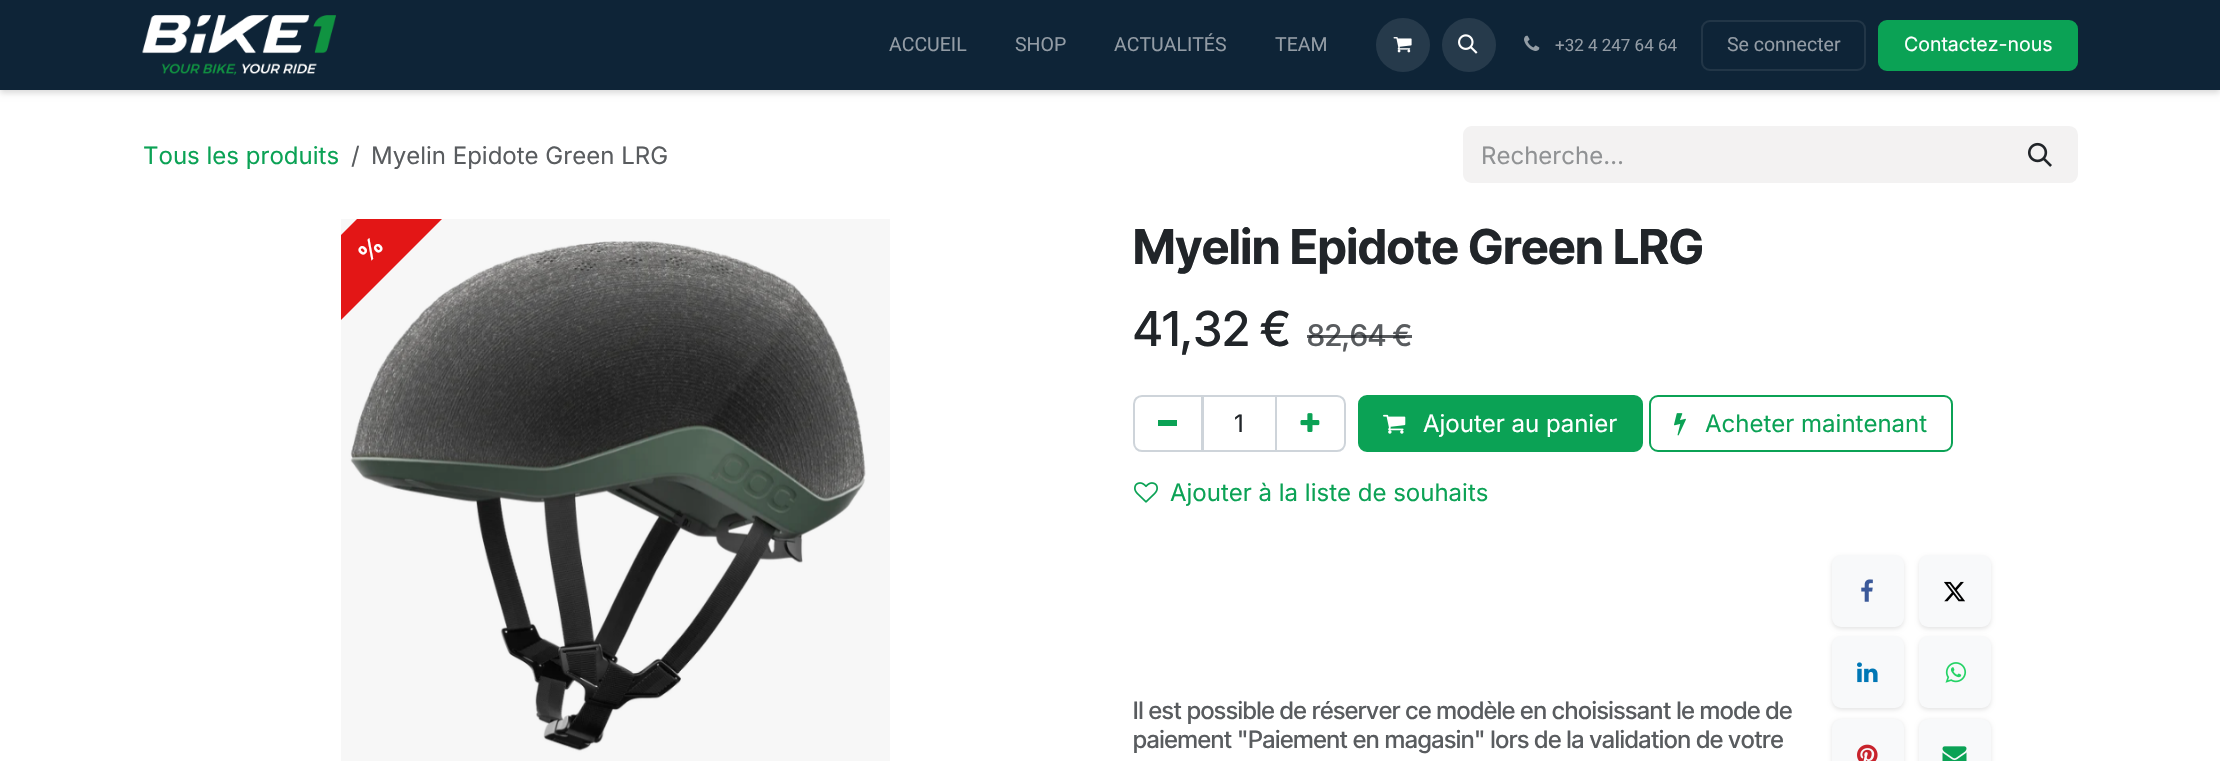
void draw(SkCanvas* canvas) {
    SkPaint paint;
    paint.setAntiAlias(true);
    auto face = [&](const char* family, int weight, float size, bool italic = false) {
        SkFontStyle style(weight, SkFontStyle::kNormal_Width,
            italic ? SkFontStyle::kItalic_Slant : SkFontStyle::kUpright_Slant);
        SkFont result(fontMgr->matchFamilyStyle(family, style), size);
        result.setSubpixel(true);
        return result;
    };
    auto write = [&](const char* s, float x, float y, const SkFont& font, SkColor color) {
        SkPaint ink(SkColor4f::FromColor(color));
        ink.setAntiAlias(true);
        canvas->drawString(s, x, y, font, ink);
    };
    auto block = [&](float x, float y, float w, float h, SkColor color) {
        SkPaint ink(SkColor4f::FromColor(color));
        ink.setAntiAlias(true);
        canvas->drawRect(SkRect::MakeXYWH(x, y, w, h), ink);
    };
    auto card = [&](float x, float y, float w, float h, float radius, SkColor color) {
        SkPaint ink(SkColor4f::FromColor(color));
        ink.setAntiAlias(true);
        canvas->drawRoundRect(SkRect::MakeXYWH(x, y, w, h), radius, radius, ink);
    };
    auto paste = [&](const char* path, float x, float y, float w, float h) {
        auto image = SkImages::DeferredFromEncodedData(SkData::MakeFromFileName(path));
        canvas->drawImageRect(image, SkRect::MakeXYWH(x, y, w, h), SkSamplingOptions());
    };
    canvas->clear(SK_ColorWHITE);
    paint.setColor(SkColorSetARGB(38, 0, 0, 0));
    paint.setMaskFilter(SkMaskFilter::MakeBlur(kNormal_SkBlurStyle, 3));
    canvas->drawRect(SkRect::MakeXYWH(0, 3, 2220, 90), paint);
    paint.setMaskFilter(nullptr);
    block(0, 0, 2220, 90, SkColorSetRGB(14, 36, 55));
    paste("pic1.png", 142, 15, 194, 60);
    auto kFont1 = face("Roboto", 400, 19.5f);
    write("ACCUEIL", 889, 51, kFont1, SkColorSetRGB(147, 156, 165));
    write("SHOP", 1015, 51, kFont1, SkColorSetRGB(147, 156, 165));
    write("ACTUALITÉS", 1114, 51, kFont1, SkColorSetRGB(147, 156, 165));
    write("TEAM", 1275, 51, kFont1, SkColorSetRGB(147, 156, 165));
    paint.setColor(SkColorSetRGB(38, 58, 75));
    canvas->drawCircle(1403, 45, 27, paint);
    paste("pic2.png", 1393, 37, 19, 16);
    canvas->drawCircle(1469, 45, 27, paint);
    paste("pic3.png", 1458, 34, 20, 20);
    paste("pic4.png", 1524, 35, 16, 16);
    auto kFont2 = face("Roboto", 400, 17);
    write("+32 4 247 64 64", 1555, 51, kFont2, SkColorSetRGB(147, 156, 165));
    paint.setStyle(SkPaint::kStroke_Style);
    paint.setStrokeWidth(2);
    paint.setColor(SkColorSetRGB(34, 54, 71));
    canvas->drawRoundRect(SkRect::MakeXYWH(1702, 21, 163, 49), 8, 8, paint);
    write("Se connecter", 1727, 51, kFont1, SkColorSetRGB(147, 156, 165));
    paint.setStyle(SkPaint::kFill_Style);
    paint.setColor(SkColorSetRGB(11, 162, 85));
    canvas->drawRoundRect(SkRect::MakeXYWH(1879, 21, 198, 49), 8, 8, paint);
    paint.setStyle(SkPaint::kStroke_Style);
    canvas->drawRoundRect(SkRect::MakeXYWH(1879, 21, 198, 49), 8, 8, paint);
    auto kFont3 = face("Inter", 400, 19.5f);
    write("Contactez-nous", 1904, 51, kFont3, SK_ColorWHITE);
    auto kFont4 = face("Inter", 400, 24);
    write("Tous les produits", 143, 164, kFont4, SkColorSetRGB(11, 162, 85));
    write("/", 351, 164, kFont4, SkColorSetRGB(89, 92, 95));
    write("Myelin Epidote Green LRG", 371, 164, kFont4, SkColorSetRGB(89, 92, 95));
    paint.setStyle(SkPaint::kFill_Style);
    paint.setColor(SkColorSetRGB(243, 242, 242));
    canvas->drawPath(SkPathBuilder().moveTo(1472, 126).lineTo(2004, 126).lineTo(2004, 183).lineTo(1472, 183).cubicTo(1467, 183, 1463, 179, 1463, 174).lineTo(1463, 135).cubicTo(1463, 130, 1467, 126, 1472, 126).close().detach(), paint);
    write("Recherche…", 1481, 164, kFont4, SkColorSetRGB(144, 146, 148));
    canvas->drawPath(SkPathBuilder().moveTo(2004, 127).lineTo(2069, 127).cubicTo(2073.5f, 127, 2077, 130.5f, 2077, 135).lineTo(2077, 174).cubicTo(2077, 178.5f, 2073.5f, 182, 2069, 182).lineTo(2004, 182).close().detach(), paint);
    paint.setStyle(SkPaint::kStroke_Style);
    canvas->drawPath(SkPathBuilder().moveTo(2004, 127).lineTo(2069, 127).cubicTo(2073.5f, 127, 2077, 130.5f, 2077, 135).lineTo(2077, 174).cubicTo(2077, 178.5f, 2073.5f, 182, 2069, 182).lineTo(2004, 182).close().detach(), paint);
    paste("pic5.png", 2028, 142, 24, 25);
    paste("pic6.png", 341, 219, 549, 542);
    canvas->save();
    canvas->clipRect(SkRect::MakeXYWH(341, 219, 549, 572));
    paint.setStyle(SkPaint::kFill_Style);
    paint.setColor(SkColorSetRGB(227, 22, 22));
    canvas->drawPath(SkPathBuilder().moveTo(234, 342).lineTo(463, 113).lineTo(506, 155).lineTo(276, 385).close().detach(), paint);
    canvas->restore();
    auto kFont5 = face("Inter", 700, 24);
    canvas->save();
    canvas->rotate(-45, 368, 264);
    write("%", 368, 264, kFont5, SK_ColorWHITE);
    canvas->restore();
    auto kFont6 = face("Inter Tight", 700, 48);
    write("Myelin Epidote Green LRG", 1133, 264, kFont6, SkColorSetRGB(33, 37, 41));
    auto kFont7 = face("Inter Tight", 500, 48);
    write("41,32 €", 1133, 346, kFont7, SkColorSetRGB(33, 37, 41));
    auto kFont8 = face("Inter Tight", 500, 30);
    write("82,64 €", 1307, 346, kFont8, SkColorSetRGB(89, 92, 95));
    block(1307, 335, 79, 3, SkColorSetARGB(191, 33, 37, 41));
    block(1386, 335, 26, 3, SkColorSetARGB(191, 33, 37, 41));
    paint.setStyle(SkPaint::kStroke_Style);
    paint.setColor(SkColorSetRGB(206, 212, 218));
    canvas->drawRect(SkRect::MakeXYWH(1203, 396, 73, 55), paint);
    canvas->drawPath(SkPathBuilder().moveTo(1142, 396).lineTo(1202, 396).lineTo(1202, 451).lineTo(1142, 451).cubicTo(1137.5f, 451, 1134, 447.5f, 1134, 443).lineTo(1134, 404).cubicTo(1134, 399.5f, 1137.5f, 396, 1142, 396).close().detach(), paint);
    block(1158, 420, 19, 6, SkColorSetRGB(11, 162, 85));
    write("1", 1234, 432, kFont4, SkColorSetRGB(33, 37, 41));
    canvas->drawPath(SkPathBuilder().moveTo(1276, 396).lineTo(1337, 396).cubicTo(1341.5f, 396, 1345, 399.5f, 1345, 404).lineTo(1345, 443).cubicTo(1345, 447.5f, 1341.5f, 451, 1337, 451).lineTo(1276, 451).close().detach(), paint);
    paste("pic7.png", 1300, 413, 20, 19);
    paint.setStyle(SkPaint::kFill_Style);
    paint.setColor(SkColorSetRGB(11, 162, 85));
    canvas->drawRoundRect(SkRect::MakeXYWH(1359, 396, 283, 55), 8, 8, paint);
    paint.setStyle(SkPaint::kStroke_Style);
    canvas->drawRoundRect(SkRect::MakeXYWH(1359, 396, 283, 55), 8, 8, paint);
    paste("pic8.png", 1383, 414, 23, 20);
    write("Ajouter au panier", 1423, 432, kFont4, SK_ColorWHITE);
    canvas->drawRoundRect(SkRect::MakeXYWH(1650, 396, 302, 55), 8, 8, paint);
    paste("pic9.png", 1674, 413, 12, 23);
    write("Acheter maintenant", 1705, 432, kFont4, SkColorSetRGB(11, 162, 85));
    paste("pic10.png", 1134, 482, 24, 21);
    write("Ajouter à la liste de souhaits", 1170, 501, kFont4, SkColorSetRGB(11, 162, 85));
    auto kFont9 = face("Inter Tight", 500, 24);
    write("Il est possible de réserver ce modèle en choisissant le mode de", 1133, 719, kFont9, SkColorSetRGB(89, 92, 95));
    write("paiement \"Paiement en magasin\" lors de la validation de votre", 1133, 748, kFont9, SkColorSetRGB(89, 92, 95));
    paint.setStyle(SkPaint::kFill_Style);
    paint.setColor(SkColorSetARGB(26, 0, 0, 0));
    paint.setMaskFilter(SkMaskFilter::MakeBlur(kNormal_SkBlurStyle, 2));
    canvas->drawRoundRect(SkRect::MakeXYWH(1832, 557, 72, 72), 9, 9, paint);
    paint.setMaskFilter(nullptr);
    card(1832, 555, 72, 72, 9, SkColorSetRGB(248, 249, 250));
    paste("pic11.png", 1861, 579, 12, 23);
    paint.setMaskFilter(SkMaskFilter::MakeBlur(kNormal_SkBlurStyle, 2));
    canvas->drawRoundRect(SkRect::MakeXYWH(1919, 557, 72, 72), 9, 9, paint);
    paint.setMaskFilter(nullptr);
    card(1919, 555, 72, 72, 9, SkColorSetRGB(248, 249, 250));
    paste("pic12.png", 1944, 581, 21, 21);
    paint.setMaskFilter(SkMaskFilter::MakeBlur(kNormal_SkBlurStyle, 2));
    canvas->drawRoundRect(SkRect::MakeXYWH(1832, 638, 72, 72), 9, 9, paint);
    paint.setMaskFilter(nullptr);
    card(1832, 636, 72, 72, 9, SkColorSetRGB(248, 249, 250));
    paste("pic13.png", 1857, 662, 21, 21);
    paint.setMaskFilter(SkMaskFilter::MakeBlur(kNormal_SkBlurStyle, 2));
    canvas->drawRoundRect(SkRect::MakeXYWH(1919, 638, 72, 72), 9, 9, paint);
    paint.setMaskFilter(nullptr);
    card(1919, 636, 72, 72, 9, SkColorSetRGB(248, 249, 250));
    paste("pic14.png", 1945, 662, 22, 21);
    paint.setMaskFilter(SkMaskFilter::MakeBlur(kNormal_SkBlurStyle, 2));
    canvas->drawRoundRect(SkRect::MakeXYWH(1832, 720, 72, 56), 9, 9, paint);
    paint.setMaskFilter(nullptr);
    card(1832, 719, 72, 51, 9, SkColorSetRGB(248, 249, 250));
    paste("pic15.png", 1857, 744, 21, 17);
    paint.setMaskFilter(SkMaskFilter::MakeBlur(kNormal_SkBlurStyle, 2));
    canvas->drawRoundRect(SkRect::MakeXYWH(1919, 720, 72, 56), 9, 9, paint);
    paint.setMaskFilter(nullptr);
    card(1919, 719, 72, 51, 9, SkColorSetRGB(248, 249, 250));
    paste("pic16.png", 1942, 746, 25, 15);
}
